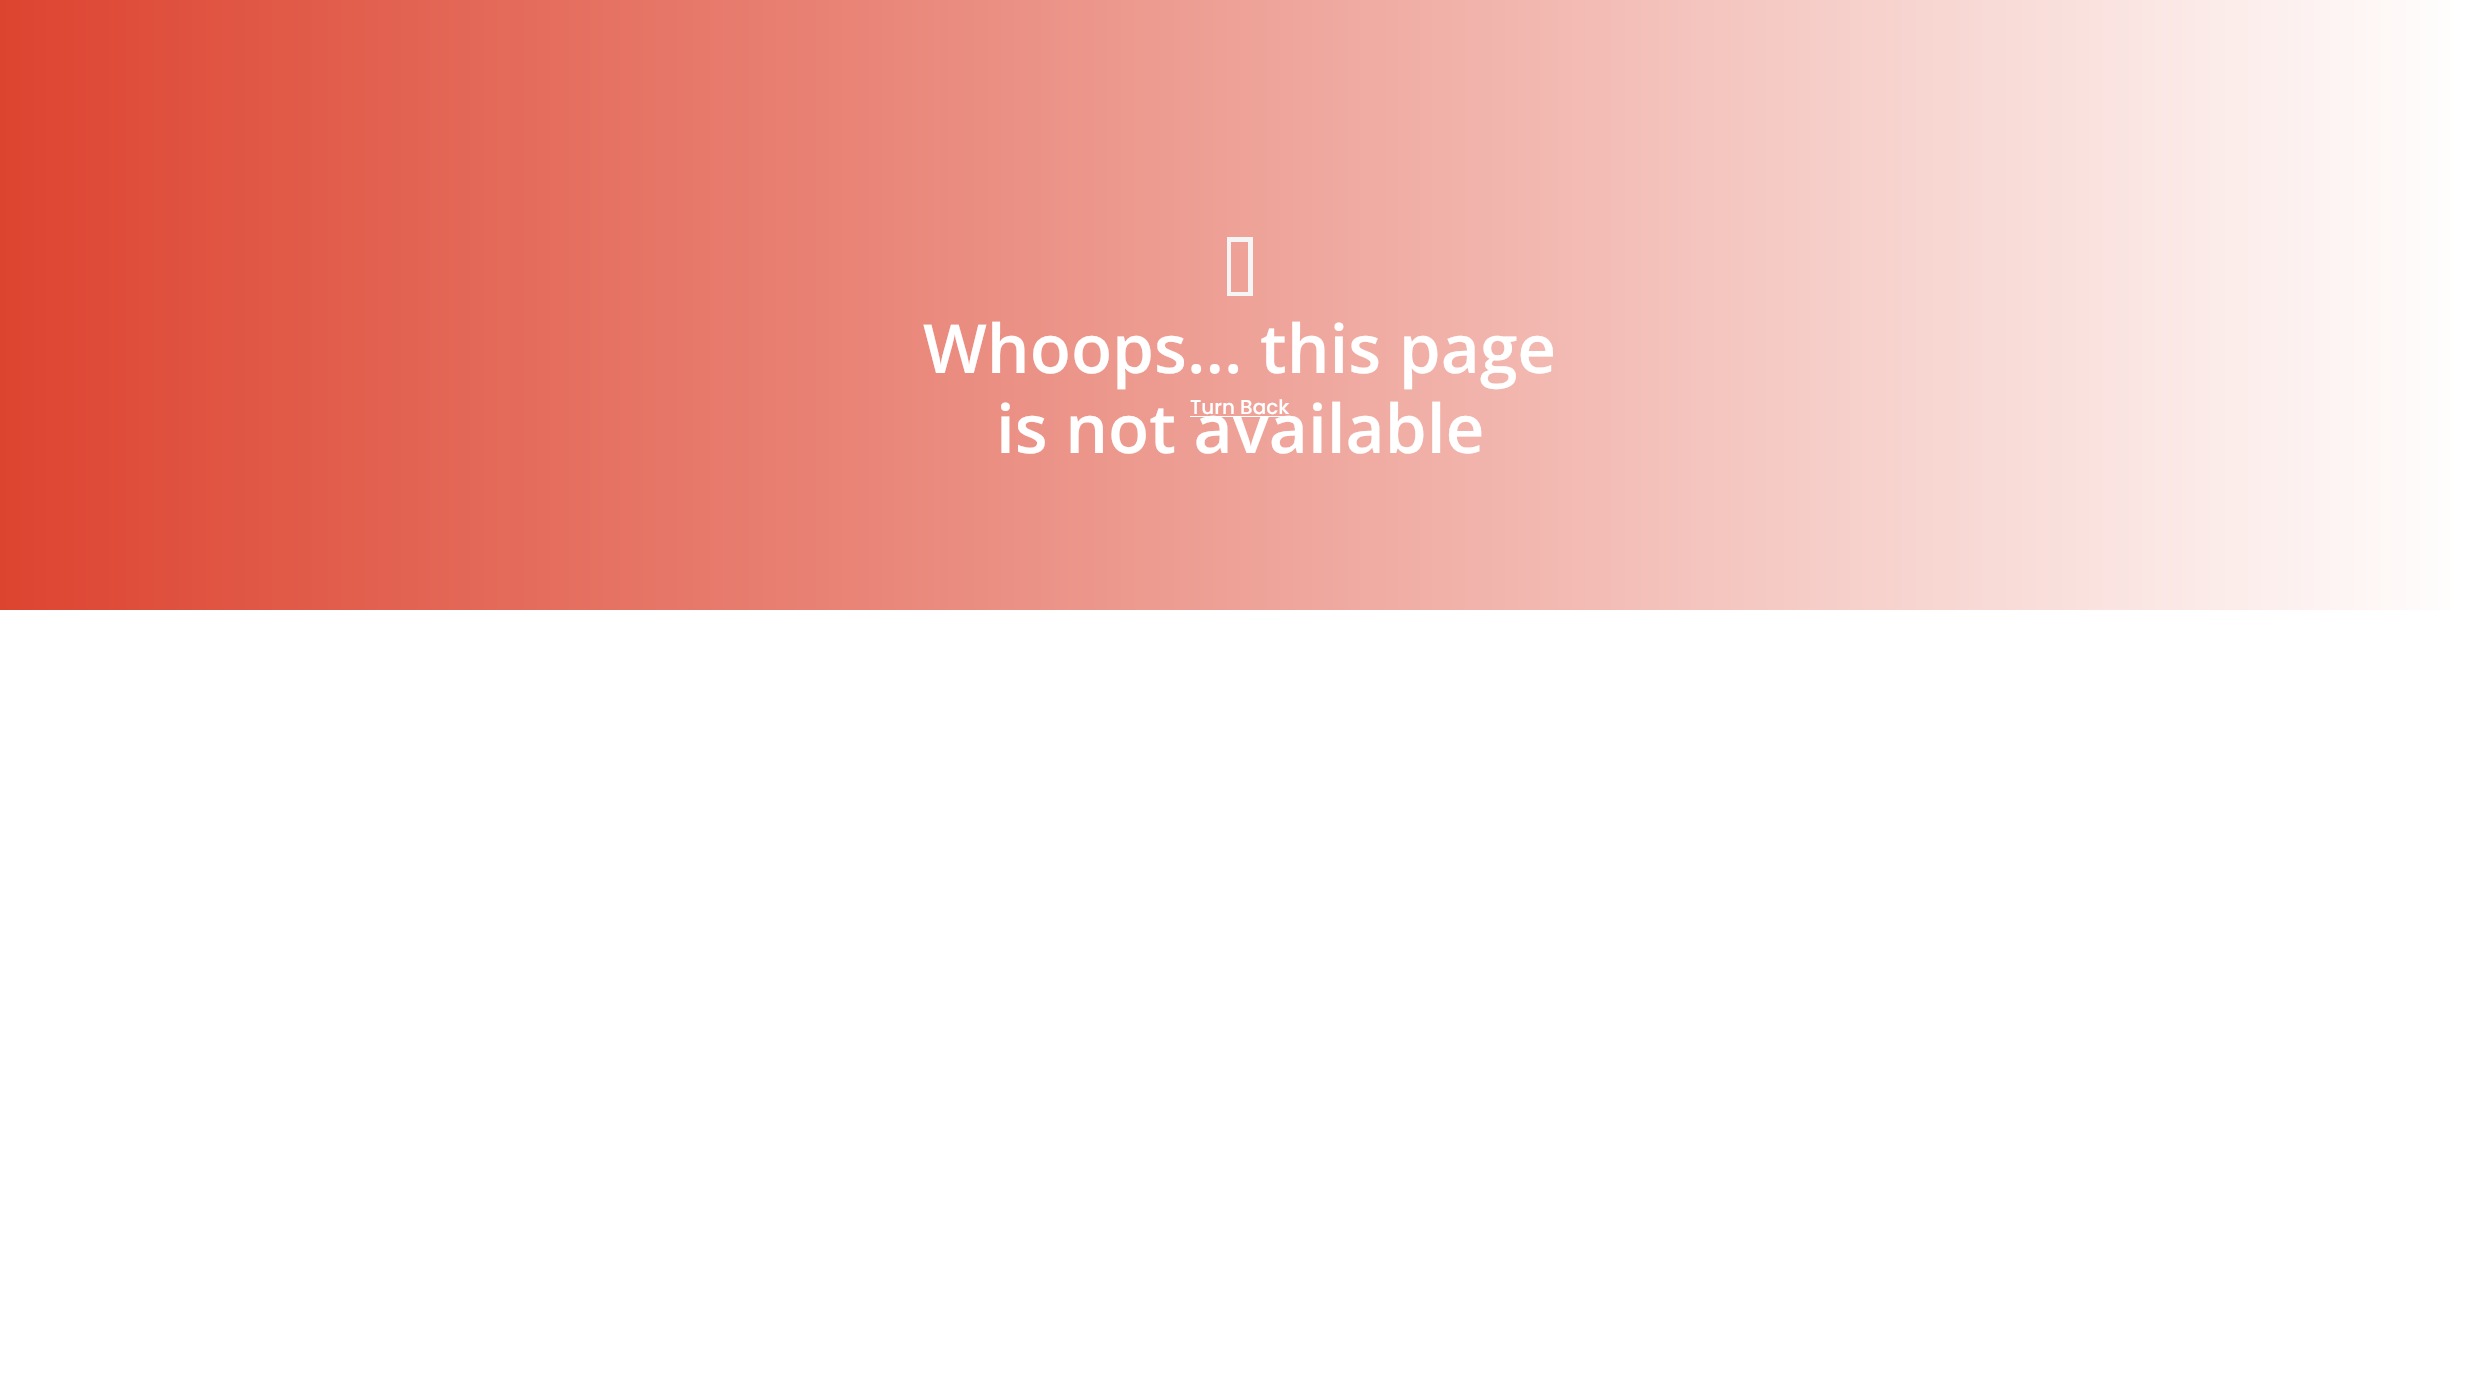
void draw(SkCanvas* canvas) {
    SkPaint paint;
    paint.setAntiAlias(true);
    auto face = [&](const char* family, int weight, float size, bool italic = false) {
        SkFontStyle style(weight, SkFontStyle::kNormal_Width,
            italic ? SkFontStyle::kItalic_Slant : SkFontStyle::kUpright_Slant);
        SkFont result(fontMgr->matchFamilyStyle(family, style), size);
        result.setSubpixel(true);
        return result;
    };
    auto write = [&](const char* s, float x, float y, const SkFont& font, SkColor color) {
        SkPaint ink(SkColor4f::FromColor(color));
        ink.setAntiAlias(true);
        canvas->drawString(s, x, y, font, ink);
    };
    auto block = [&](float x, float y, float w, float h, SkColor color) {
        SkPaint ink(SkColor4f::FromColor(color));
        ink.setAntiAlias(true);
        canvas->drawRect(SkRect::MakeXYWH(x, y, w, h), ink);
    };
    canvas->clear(SK_ColorWHITE);
    {
        const SkColor colors[] = {SkColorSetRGB(221, 68, 48), SK_ColorWHITE};
        const float stops[] = {0, 1};
        const SkPoint ends[] = {{0, 691}, {2480, 691}};
        paint.setShader(SkGradientShader::MakeLinear(ends, colors, stops, 2, SkTileMode::kClamp));
        paint.setAlpha(255);
    }
    canvas->drawRect(SkRect::MakeXYWH(0, 0, 2450, 610), paint);
    paint.setShader(nullptr);
    paint.setColor(SkColorSetRGB(245, 245, 245));
    canvas->drawPath(SkPathBuilder().moveTo(1231, 292).lineTo(1231, 242).lineTo(1248, 242).lineTo(1248, 292).close().moveTo(1227, 296).lineTo(1253, 296).lineTo(1253, 237).lineTo(1227, 237).close().detach(), paint);
    auto kFont1 = face("Open Sans", 600, 67.5f);
    write("Whoops... this page", 923, 373, kFont1, SK_ColorWHITE);
    write("is not available", 996, 453, kFont1, SK_ColorWHITE);
    auto kFont2 = face("Poppins", 500, 20);
    write("Turn Back", 1190, 414, kFont2, SK_ColorWHITE);
    block(1190, 416, 100, 1, SK_ColorWHITE);
}
